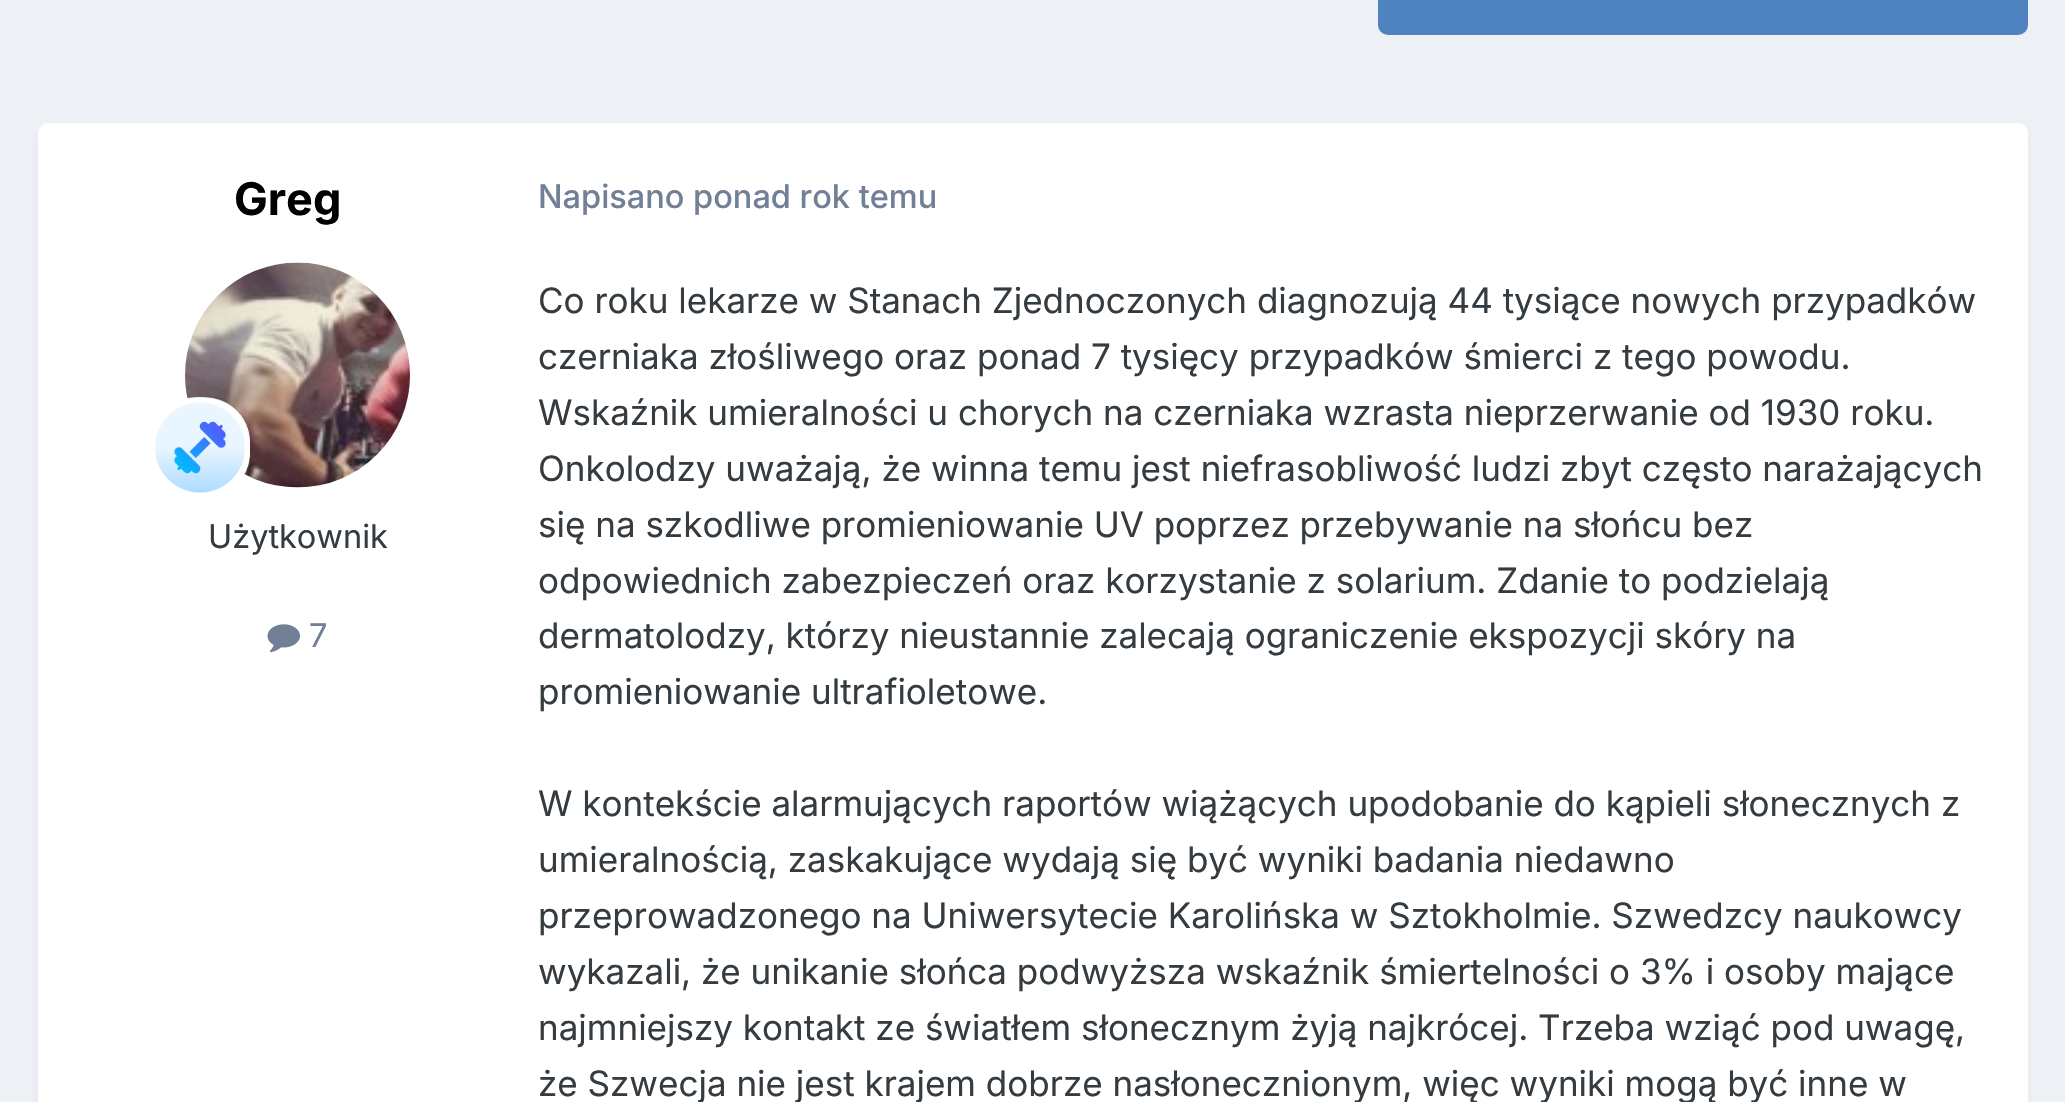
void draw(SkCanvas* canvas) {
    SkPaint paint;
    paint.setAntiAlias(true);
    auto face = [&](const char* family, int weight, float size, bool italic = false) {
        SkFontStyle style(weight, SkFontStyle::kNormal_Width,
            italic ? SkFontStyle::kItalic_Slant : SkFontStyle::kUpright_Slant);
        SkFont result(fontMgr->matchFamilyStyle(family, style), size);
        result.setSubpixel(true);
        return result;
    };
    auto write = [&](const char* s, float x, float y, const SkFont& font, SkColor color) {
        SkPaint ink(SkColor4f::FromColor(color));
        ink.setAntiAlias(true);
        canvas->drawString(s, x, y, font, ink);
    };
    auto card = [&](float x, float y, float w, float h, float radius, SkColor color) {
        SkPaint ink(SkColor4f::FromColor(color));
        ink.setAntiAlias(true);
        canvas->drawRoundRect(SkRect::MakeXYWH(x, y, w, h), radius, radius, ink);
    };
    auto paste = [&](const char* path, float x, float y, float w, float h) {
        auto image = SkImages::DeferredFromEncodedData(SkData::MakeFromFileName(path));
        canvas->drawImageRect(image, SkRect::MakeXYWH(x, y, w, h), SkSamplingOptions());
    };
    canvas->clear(SkColorSetRGB(237, 240, 244));
    card(1378, -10, 650, 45, 10, SkColorSetRGB(79, 131, 191));
    paint.setColor(SkColorSetARGB(26, 45, 55, 72));
    paint.setMaskFilter(SkMaskFilter::MakeBlur(kNormal_SkBlurStyle, 5));
    canvas->drawRoundRect(SkRect::MakeXYWH(40, 130, 1985, 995), 8, 8, paint);
    paint.setMaskFilter(nullptr);
    card(38, 123, 1990, 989, 10, SK_ColorWHITE);
    auto kFont1 = face("Inter", 700, 45);
    write("Greg", 234, 215, kFont1, SK_ColorBLACK);
    paste("pic1.png", 185, 262, 225, 226);
    paste("pic2.png", 155, 397, 95, 96);
    auto kFont2 = face("Inter", 400, 32.5f);
    write("Użytkownik", 208, 548, kFont2, SkColorSetRGB(53, 60, 65));
    paste("pic3.png", 267, 624, 33, 29);
    write("7", 309, 647, kFont2, SkColorSetRGB(113, 128, 150));
    auto kFont3 = face("Inter", 500, 32.5f);
    write("Napisano ponad rok temu", 538, 208, kFont3, SkColorSetRGB(113, 128, 150));
    auto kFont4 = face("Inter", 400, 35);
    write("Co roku lekarze w Stanach Zjednoczonych diagnozują 44 tysiące nowych przypadków", 538, 313, kFont4, SkColorSetRGB(53, 60, 65));
    write("czerniaka złośliwego oraz ponad 7 tysięcy przypadków śmierci z tego powodu.", 538, 369, kFont4, SkColorSetRGB(53, 60, 65));
    write("Wskaźnik umieralności u chorych na czerniaka wzrasta nieprzerwanie od 1930 roku.", 538, 425, kFont4, SkColorSetRGB(53, 60, 65));
    write("Onkolodzy uważają, że winna temu jest niefrasobliwość ludzi zbyt często narażających", 538, 481, kFont4, SkColorSetRGB(53, 60, 65));
    write("się na szkodliwe promieniowanie UV poprzez przebywanie na słońcu bez", 538, 537, kFont4, SkColorSetRGB(53, 60, 65));
    write("odpowiednich zabezpieczeń oraz korzystanie z solarium. Zdanie to podzielają", 538, 593, kFont4, SkColorSetRGB(53, 60, 65));
    write("dermatolodzy, którzy nieustannie zalecają ograniczenie ekspozycji skóry na", 538, 648, kFont4, SkColorSetRGB(53, 60, 65));
    write("promieniowanie ultrafioletowe.", 538, 704, kFont4, SkColorSetRGB(53, 60, 65));
    write("W kontekście alarmujących raportów wiążących upodobanie do kąpieli słonecznych z", 538, 816, kFont4, SkColorSetRGB(53, 60, 65));
    write("umieralnością, zaskakujące wydają się być wyniki badania niedawno", 538, 872, kFont4, SkColorSetRGB(53, 60, 65));
    write("przeprowadzonego na Uniwersytecie Karolińska w Sztokholmie. Szwedzcy naukowcy", 538, 928, kFont4, SkColorSetRGB(53, 60, 65));
    write("wykazali, że unikanie słońca podwyższa wskaźnik śmiertelności o 3% i osoby mające", 538, 984, kFont4, SkColorSetRGB(53, 60, 65));
    write("najmniejszy kontakt ze światłem słonecznym żyją najkrócej. Trzeba wziąć pod uwagę,", 538, 1040, kFont4, SkColorSetRGB(53, 60, 65));
    write("że Szwecja nie jest krajem dobrze nasłonecznionym, więc wyniki mogą być inne w", 538, 1096, kFont4, SkColorSetRGB(53, 60, 65));
}
